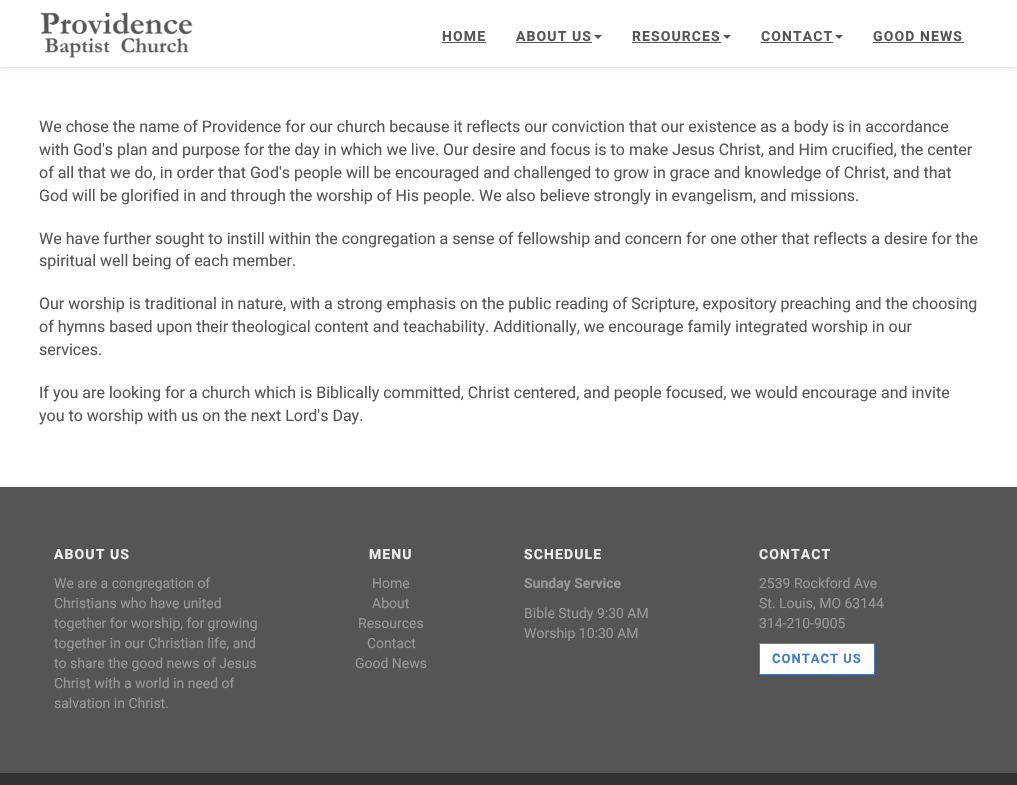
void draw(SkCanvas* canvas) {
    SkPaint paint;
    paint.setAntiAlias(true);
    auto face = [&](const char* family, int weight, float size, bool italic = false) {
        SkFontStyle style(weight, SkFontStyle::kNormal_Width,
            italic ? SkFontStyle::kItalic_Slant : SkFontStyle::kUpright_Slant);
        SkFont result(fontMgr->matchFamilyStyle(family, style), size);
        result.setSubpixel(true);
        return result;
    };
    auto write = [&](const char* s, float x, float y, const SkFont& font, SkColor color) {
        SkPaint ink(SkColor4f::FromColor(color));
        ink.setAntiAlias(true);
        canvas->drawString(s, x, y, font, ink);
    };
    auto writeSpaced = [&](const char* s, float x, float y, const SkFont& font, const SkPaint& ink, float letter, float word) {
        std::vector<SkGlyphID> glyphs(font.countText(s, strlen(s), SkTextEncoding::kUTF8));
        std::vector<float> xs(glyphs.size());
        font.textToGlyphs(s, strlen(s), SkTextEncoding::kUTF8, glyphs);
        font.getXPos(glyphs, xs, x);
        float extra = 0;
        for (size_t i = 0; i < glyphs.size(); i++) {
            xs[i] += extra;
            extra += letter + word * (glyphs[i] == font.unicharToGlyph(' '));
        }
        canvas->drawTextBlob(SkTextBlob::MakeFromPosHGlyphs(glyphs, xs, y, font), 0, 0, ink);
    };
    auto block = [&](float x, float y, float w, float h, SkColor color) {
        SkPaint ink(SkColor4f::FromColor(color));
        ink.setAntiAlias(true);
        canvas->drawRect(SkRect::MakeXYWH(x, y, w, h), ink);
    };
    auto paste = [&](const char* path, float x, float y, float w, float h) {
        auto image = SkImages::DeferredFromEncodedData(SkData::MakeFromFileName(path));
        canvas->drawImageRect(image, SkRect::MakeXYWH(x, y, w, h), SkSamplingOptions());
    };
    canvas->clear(SK_ColorWHITE);
    paint.setColor(SkColorSetRGB(204, 204, 204));
    paint.setMaskFilter(SkMaskFilter::MakeBlur(kNormal_SkBlurStyle, 2.5f));
    canvas->drawRect(SkRect::MakeXYWH(0, 0, 1017, 67), paint);
    paint.setMaskFilter(nullptr);
    block(0, 0, 1017, 67, SK_ColorWHITE);
    paste("pic1.png", 40, 12, 153, 47);
    auto kFont1 = face("Roboto", 700, 14);
    paint.setColor(SkColorSetRGB(85, 85, 85));
    writeSpaced("HOME", 442, 41, kFont1, paint, 1.1f, 0);
    block(442, 42, 44, 1, SkColorSetRGB(85, 85, 85));
    writeSpaced("ABOUT US", 516, 41, kFont1, paint, 1.1f, 0);
    block(516, 42, 76, 1, SkColorSetRGB(85, 85, 85));
    canvas->drawPath(SkPathBuilder().moveTo(594, 35).lineTo(602, 35).lineTo(598, 39).close().detach(), paint);
    writeSpaced("RESOURCES", 632, 41, kFont1, paint, 1.1f, 0);
    block(632, 42, 89, 1, SkColorSetRGB(85, 85, 85));
    canvas->drawPath(SkPathBuilder().moveTo(723, 35).lineTo(731, 35).lineTo(727, 39).close().detach(), paint);
    writeSpaced("CONTACT", 761, 41, kFont1, paint, 1.1f, 0);
    block(761, 42, 72, 1, SkColorSetRGB(85, 85, 85));
    canvas->drawPath(SkPathBuilder().moveTo(835, 35).lineTo(843, 35).lineTo(839, 39).close().detach(), paint);
    writeSpaced("GOOD NEWS", 873, 41, kFont1, paint, 1.1f, 0);
    block(873, 42, 91, 1, SkColorSetRGB(85, 85, 85));
    auto kFont2 = face("Roboto", 400, 16);
    write("We chose the name of Providence for our church because it reflects our conviction that our existence as a body is in accordance", 39, 132, kFont2, SkColorSetRGB(85, 85, 85));
    write("with God's plan and purpose for the day in which we live. Our desire and focus is to make Jesus Christ, and Him crucified, the center", 39, 155, kFont2, SkColorSetRGB(85, 85, 85));
    write("of all that we do, in order that God's people will be encouraged and challenged to grow in grace and knowledge of Christ, and that", 39, 178, kFont2, SkColorSetRGB(85, 85, 85));
    write("God will be glorified in and through the worship of His people. We also believe strongly in evangelism, and missions.", 39, 201, kFont2, SkColorSetRGB(85, 85, 85));
    write("We have further sought to instill within the congregation a sense of fellowship and concern for one other that reflects a desire for the", 39, 244, kFont2, SkColorSetRGB(85, 85, 85));
    write("spiritual well being of each member.", 39, 266, kFont2, SkColorSetRGB(85, 85, 85));
    write("Our worship is traditional in nature, with a strong emphasis on the public reading of Scripture, expository preaching and the choosing", 39, 309, kFont2, SkColorSetRGB(85, 85, 85));
    write("of hymns based upon their theological content and teachability. Additionally, we encourage family integrated worship in our", 39, 332, kFont2, SkColorSetRGB(85, 85, 85));
    write("services.", 39, 355, kFont2, SkColorSetRGB(85, 85, 85));
    write("If you are looking for a church which is Biblically committed, Christ centered, and people focused, we would encourage and invite", 39, 398, kFont2, SkColorSetRGB(85, 85, 85));
    write("you to worship with us on the next Lord's Day.", 39, 421, kFont2, SkColorSetRGB(85, 85, 85));
    block(0, 487, 1017, 286, SkColorSetRGB(85, 85, 85));
    paint.setColor(SkColorSetRGB(238, 238, 238));
    writeSpaced("ABOUT US", 54, 559, kFont1, paint, 1.1f, 0);
    auto kFont3 = face("Roboto", 400, 14);
    write("We are a congregation of", 54, 588, kFont3, SkColorSetRGB(153, 153, 153));
    write("Christians who have united", 54, 608, kFont3, SkColorSetRGB(153, 153, 153));
    write("together for worship, for growing", 54, 628, kFont3, SkColorSetRGB(153, 153, 153));
    write("together in our Christian life, and", 54, 648, kFont3, SkColorSetRGB(153, 153, 153));
    write("to share the good news of Jesus", 54, 668, kFont3, SkColorSetRGB(153, 153, 153));
    write("Christ with a world in need of", 54, 688, kFont3, SkColorSetRGB(153, 153, 153));
    write("salvation in Christ.", 54, 708, kFont3, SkColorSetRGB(153, 153, 153));
    writeSpaced("MENU", 369, 559, kFont1, paint, 1.1f, 0);
    write("Home", 372, 588, kFont3, SkColorSetRGB(153, 153, 153));
    write("About", 372, 608, kFont3, SkColorSetRGB(153, 153, 153));
    write("Resources", 358, 628, kFont3, SkColorSetRGB(153, 153, 153));
    write("Contact", 367, 648, kFont3, SkColorSetRGB(153, 153, 153));
    write("Good News", 355, 668, kFont3, SkColorSetRGB(153, 153, 153));
    writeSpaced("SCHEDULE", 524, 559, kFont1, paint, 1.1f, 0);
    write("Sunday Service", 524, 588, kFont1, SkColorSetRGB(153, 153, 153));
    write("Bible Study 9:30 AM", 524, 618, kFont3, SkColorSetRGB(153, 153, 153));
    write("Worship 10:30 AM", 524, 638, kFont3, SkColorSetRGB(153, 153, 153));
    writeSpaced("CONTACT", 759, 559, kFont1, paint, 1.1f, 0);
    write("2539 Rockford Ave", 759, 588, kFont3, SkColorSetRGB(153, 153, 153));
    write("St. Louis, MO 63144", 759, 608, kFont3, SkColorSetRGB(153, 153, 153));
    write("314-210-9005", 759, 628, kFont3, SkColorSetRGB(153, 153, 153));
    paint.setColor(SK_ColorWHITE);
    canvas->drawRect(SkRect::MakeXYWH(759.5f, 643.5f, 115, 31), paint);
    paint.setStyle(SkPaint::kStroke_Style);
    paint.setStrokeWidth(1);
    paint.setColor(SkColorSetRGB(70, 127, 191));
    canvas->drawRect(SkRect::MakeXYWH(759.5f, 643.5f, 115, 31), paint);
    auto kFont4 = face("Roboto", 700, 13);
    paint.setStyle(SkPaint::kFill_Style);
    writeSpaced("CONTACT US", 772, 663, kFont4, paint, 1, 0);
    block(0, 773, 1017, 12, SkColorSetRGB(51, 51, 51));
}
